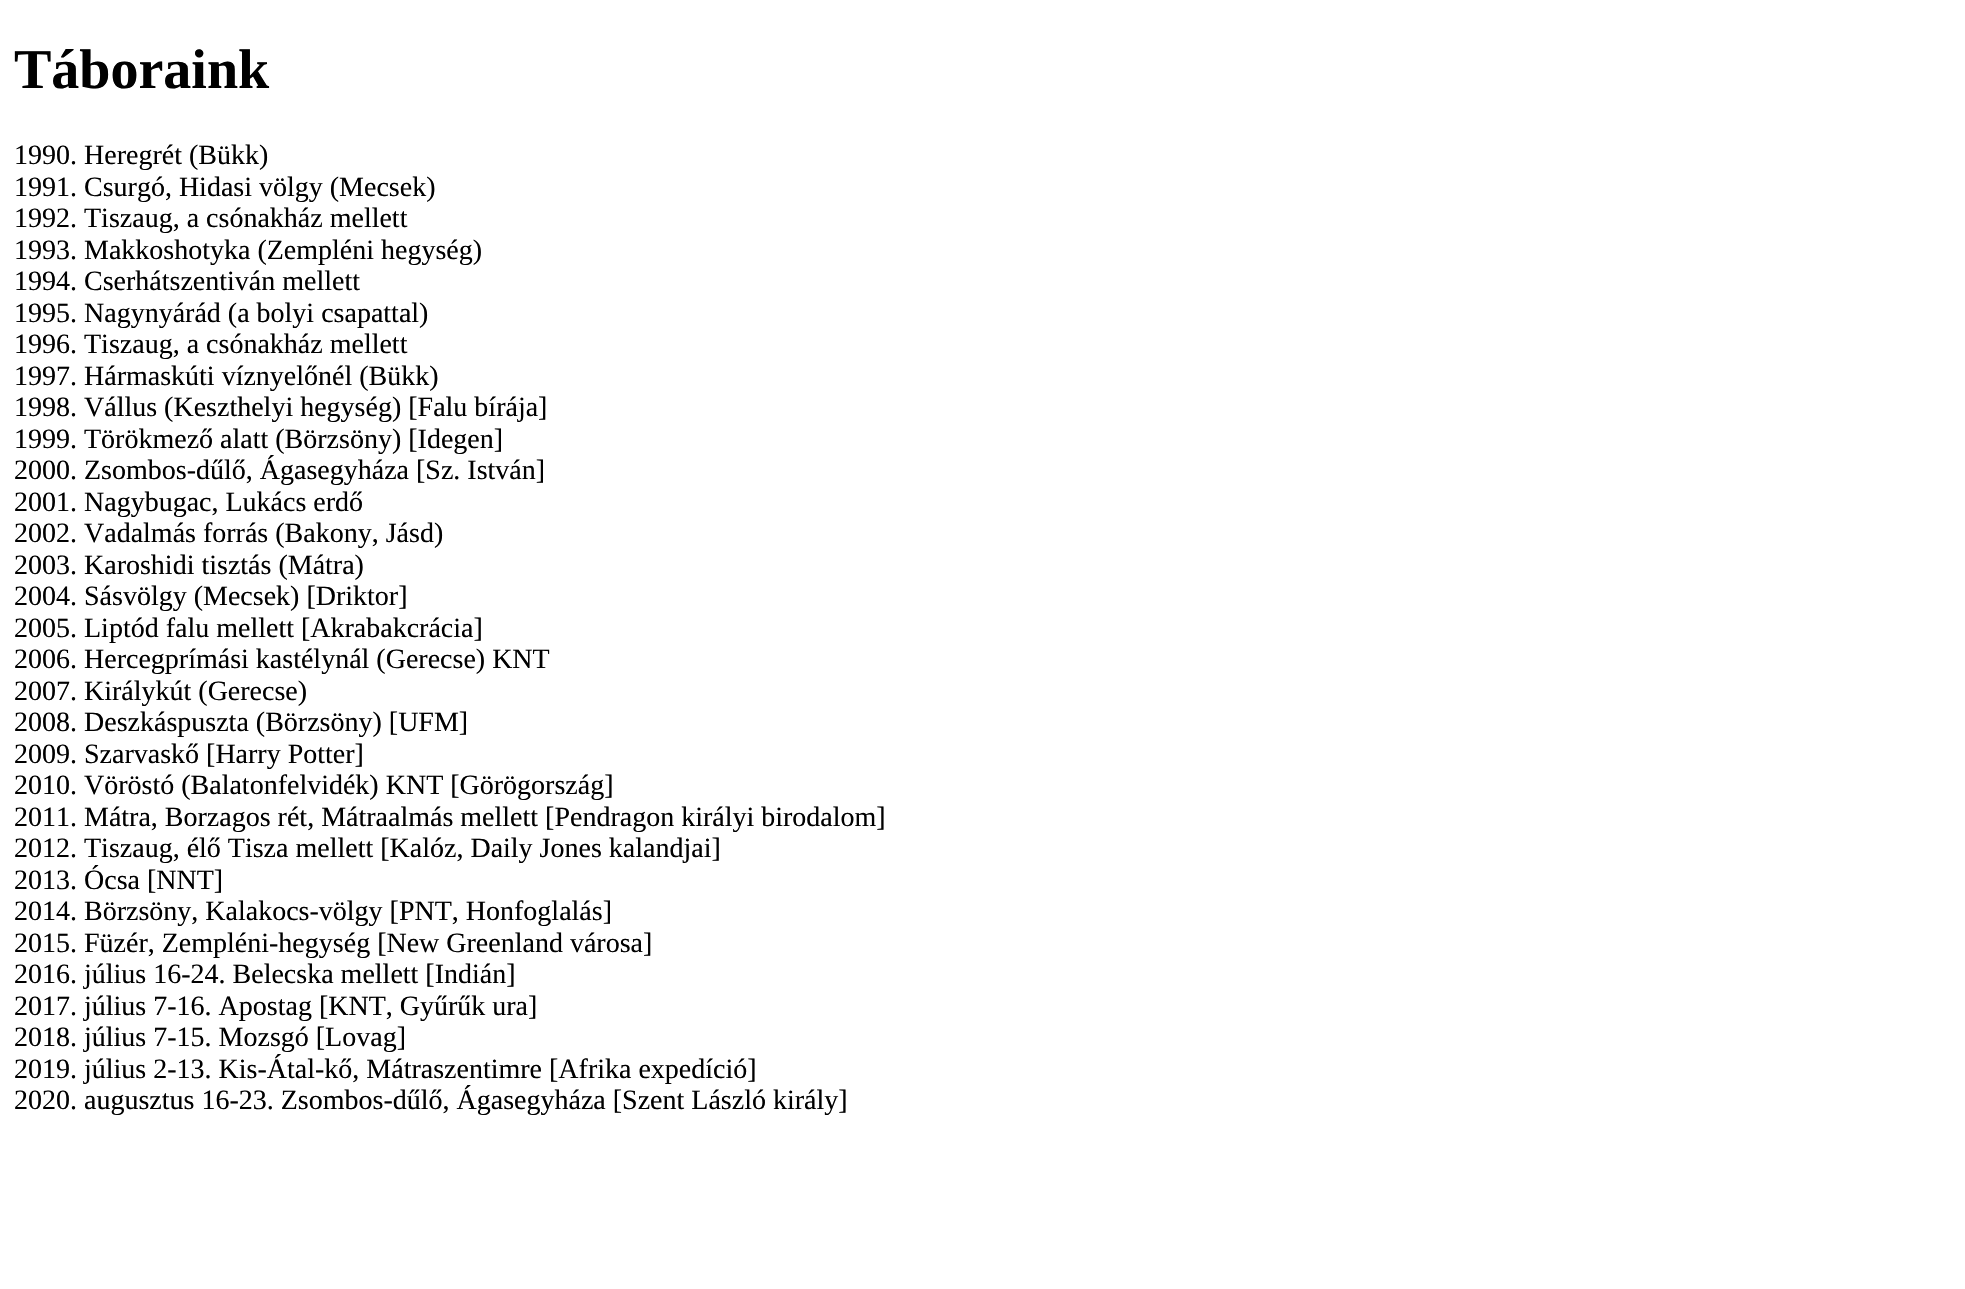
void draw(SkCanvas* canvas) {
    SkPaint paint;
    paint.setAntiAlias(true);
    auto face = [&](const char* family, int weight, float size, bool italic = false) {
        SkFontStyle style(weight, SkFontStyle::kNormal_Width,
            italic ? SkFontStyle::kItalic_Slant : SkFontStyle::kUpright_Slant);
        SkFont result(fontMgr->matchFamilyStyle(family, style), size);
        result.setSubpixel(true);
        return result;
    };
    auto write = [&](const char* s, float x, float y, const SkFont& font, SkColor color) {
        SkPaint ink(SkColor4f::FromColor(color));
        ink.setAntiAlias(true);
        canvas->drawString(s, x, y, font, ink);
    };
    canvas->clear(SK_ColorWHITE);
    auto kFont1 = face("Liberation Serif", 700, 56);
    write("Táboraink", 14, 88, kFont1, SK_ColorBLACK);
    auto kFont2 = face("Liberation Serif", 400, 28);
    write("1990. Heregrét (Bükk)", 14, 164, kFont2, SK_ColorBLACK);
    write("1991. Csurgó, Hidasi völgy (Mecsek)", 14, 196, kFont2, SK_ColorBLACK);
    write("1992. Tiszaug, a csónakház mellett", 14, 227, kFont2, SK_ColorBLACK);
    write("1993. Makkoshotyka (Zempléni hegység)", 14, 259, kFont2, SK_ColorBLACK);
    write("1994. Cserhátszentiván mellett", 14, 290, kFont2, SK_ColorBLACK);
    write("1995. Nagynyárád (a bolyi csapattal)", 14, 322, kFont2, SK_ColorBLACK);
    write("1996. Tiszaug, a csónakház mellett", 14, 353, kFont2, SK_ColorBLACK);
    write("1997. Hármaskúti víznyelőnél (Bükk)", 14, 385, kFont2, SK_ColorBLACK);
    write("1998. Vállus (Keszthelyi hegység) [Falu bírája]", 14, 416, kFont2, SK_ColorBLACK);
    write("1999. Törökmező alatt (Börzsöny) [Idegen]", 14, 448, kFont2, SK_ColorBLACK);
    write("2000. Zsombos-dűlő, Ágasegyháza [Sz. István]", 14, 479, kFont2, SK_ColorBLACK);
    write("2001. Nagybugac, Lukács erdő", 14, 511, kFont2, SK_ColorBLACK);
    write("2002. Vadalmás forrás (Bakony, Jásd)", 14, 542, kFont2, SK_ColorBLACK);
    write("2003. Karoshidi tisztás (Mátra)", 14, 574, kFont2, SK_ColorBLACK);
    write("2004. Sásvölgy (Mecsek) [Driktor]", 14, 605, kFont2, SK_ColorBLACK);
    write("2005. Liptód falu mellett [Akrabakcrácia]", 14, 637, kFont2, SK_ColorBLACK);
    write("2006. Hercegprímási kastélynál (Gerecse) KNT", 14, 668, kFont2, SK_ColorBLACK);
    write("2007. Királykút (Gerecse)", 14, 700, kFont2, SK_ColorBLACK);
    write("2008. Deszkáspuszta (Börzsöny) [UFM]", 14, 731, kFont2, SK_ColorBLACK);
    write("2009. Szarvaskő [Harry Potter]", 14, 763, kFont2, SK_ColorBLACK);
    write("2010. Vöröstó (Balatonfelvidék) KNT [Görögország]", 14, 794, kFont2, SK_ColorBLACK);
    write("2011. Mátra, Borzagos rét, Mátraalmás mellett [Pendragon királyi birodalom]", 14, 826, kFont2, SK_ColorBLACK);
    write("2012. Tiszaug, élő Tisza mellett [Kalóz, Daily Jones kalandjai]", 14, 857, kFont2, SK_ColorBLACK);
    write("2013. Ócsa [NNT]", 14, 889, kFont2, SK_ColorBLACK);
    write("2014. Börzsöny, Kalakocs-völgy [PNT, Honfoglalás]", 14, 920, kFont2, SK_ColorBLACK);
    write("2015. Füzér, Zempléni-hegység [New Greenland városa]", 14, 952, kFont2, SK_ColorBLACK);
    write("2016. július 16-24. Belecska mellett [Indián]", 14, 983, kFont2, SK_ColorBLACK);
    write("2017. július 7-16. Apostag [KNT, Gyűrűk ura]", 14, 1015, kFont2, SK_ColorBLACK);
    write("2018. július 7-15. Mozsgó [Lovag]", 14, 1046, kFont2, SK_ColorBLACK);
    write("2019. július 2-13. Kis-Átal-kő, Mátraszentimre [Afrika expedíció]", 14, 1078, kFont2, SK_ColorBLACK);
    write("2020. augusztus 16-23. Zsombos-dűlő, Ágasegyháza [Szent László király]", 14, 1109, kFont2, SK_ColorBLACK);
}
